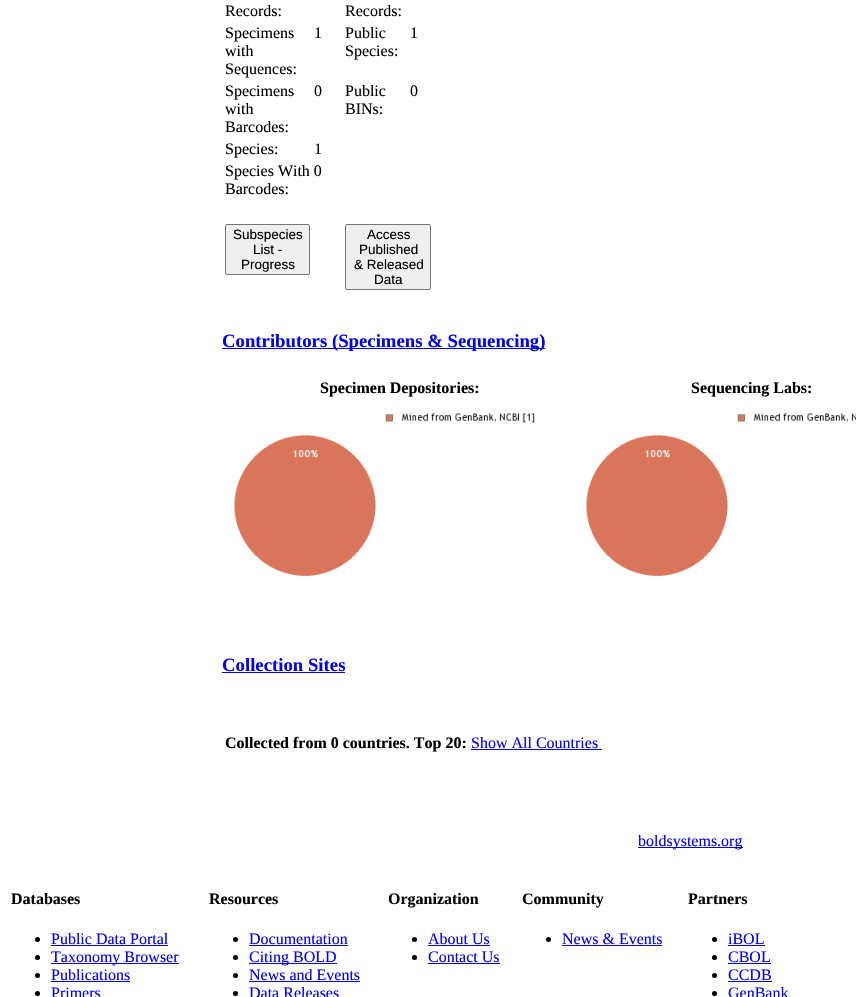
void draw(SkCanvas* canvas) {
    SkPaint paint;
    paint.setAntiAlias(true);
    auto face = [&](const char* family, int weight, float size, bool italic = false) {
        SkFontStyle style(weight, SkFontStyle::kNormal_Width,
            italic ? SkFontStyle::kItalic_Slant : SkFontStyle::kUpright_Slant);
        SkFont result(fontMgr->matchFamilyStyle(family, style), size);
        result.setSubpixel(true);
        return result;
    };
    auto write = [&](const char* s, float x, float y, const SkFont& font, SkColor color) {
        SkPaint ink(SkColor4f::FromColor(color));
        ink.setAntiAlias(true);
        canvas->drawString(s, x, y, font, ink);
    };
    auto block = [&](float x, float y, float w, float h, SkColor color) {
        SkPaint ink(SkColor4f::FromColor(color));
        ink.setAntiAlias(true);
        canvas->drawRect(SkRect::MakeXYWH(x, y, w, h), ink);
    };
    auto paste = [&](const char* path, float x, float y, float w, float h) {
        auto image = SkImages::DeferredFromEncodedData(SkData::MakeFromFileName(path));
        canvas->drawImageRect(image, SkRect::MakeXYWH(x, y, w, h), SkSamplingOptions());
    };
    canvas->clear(SK_ColorWHITE);
    auto kFont1 = face("Liberation Serif", 400, 16);
    write("Records:", 225, 16, kFont1, SK_ColorBLACK);
    write("Records:", 345, 16, kFont1, SK_ColorBLACK);
    write("Specimens", 225, 38, kFont1, SK_ColorBLACK);
    write("with", 225, 56, kFont1, SK_ColorBLACK);
    write("Sequences:", 225, 74, kFont1, SK_ColorBLACK);
    write("1", 314, 38, kFont1, SK_ColorBLACK);
    write("Public", 345, 38, kFont1, SK_ColorBLACK);
    write("Species:", 345, 56, kFont1, SK_ColorBLACK);
    write("1", 410, 38, kFont1, SK_ColorBLACK);
    write("Specimens", 225, 96, kFont1, SK_ColorBLACK);
    write("with", 225, 114, kFont1, SK_ColorBLACK);
    write("Barcodes:", 225, 132, kFont1, SK_ColorBLACK);
    write("0", 314, 96, kFont1, SK_ColorBLACK);
    write("Public", 345, 96, kFont1, SK_ColorBLACK);
    write("BINs:", 345, 114, kFont1, SK_ColorBLACK);
    write("0", 410, 96, kFont1, SK_ColorBLACK);
    write("Species:", 225, 154, kFont1, SK_ColorBLACK);
    write("1", 314, 154, kFont1, SK_ColorBLACK);
    write("Species With 0", 225, 176, kFont1, SK_ColorBLACK);
    write("Barcodes:", 225, 194, kFont1, SK_ColorBLACK);
    paint.setColor(SkColorSetRGB(239, 239, 239));
    canvas->drawRoundRect(SkRect::MakeXYWH(225.5f, 224.5f, 84, 50), 1.5f, 1.5f, paint);
    paint.setStyle(SkPaint::kStroke_Style);
    paint.setStrokeWidth(1);
    paint.setColor(SkColorSetRGB(118, 118, 118));
    canvas->drawRoundRect(SkRect::MakeXYWH(225.5f, 224.5f, 84, 50), 1.5f, 1.5f, paint);
    auto kFont2 = face("Liberation Sans", 400, 13.5f);
    write("Subspecies", 233, 239, kFont2, SK_ColorBLACK);
    write("List -", 253, 254, kFont2, SK_ColorBLACK);
    write("Progress", 241, 269, kFont2, SK_ColorBLACK);
    paint.setStyle(SkPaint::kFill_Style);
    paint.setColor(SkColorSetRGB(239, 239, 239));
    canvas->drawRoundRect(SkRect::MakeXYWH(345.5f, 224.5f, 85, 65), 1.5f, 1.5f, paint);
    paint.setStyle(SkPaint::kStroke_Style);
    paint.setColor(SkColorSetRGB(118, 118, 118));
    canvas->drawRoundRect(SkRect::MakeXYWH(345.5f, 224.5f, 85, 65), 1.5f, 1.5f, paint);
    write("Access", 367, 239, kFont2, SK_ColorBLACK);
    write("Published", 359, 254, kFont2, SK_ColorBLACK);
    write("& Released", 354, 269, kFont2, SK_ColorBLACK);
    write("Data", 374, 284, kFont2, SK_ColorBLACK);
    block(222, 348, 323, 1, SkColorSetRGB(0, 0, 238));
    auto kFont3 = face("Liberation Serif", 700, 18.75f);
    write("Contributors (Specimens & Sequencing)", 222, 347, kFont3, SkColorSetRGB(0, 0, 238));
    auto kFont4 = face("Liberation Serif", 700, 16);
    write("Specimen Depositories:", 320, 393, kFont4, SK_ColorBLACK);
    write("Sequencing Labs:", 691, 393, kFont4, SK_ColorBLACK);
    paste("pic1.png", 234, 413, 301, 163);
    paste("pic2.png", 586, 413, 270, 163);
    write("Collection Sites", 222, 671, kFont3, SkColorSetRGB(0, 0, 238));
    block(222, 672, 123, 1, SkColorSetRGB(0, 0, 238));
    write("Collected from 0 countries. Top 20:", 225, 748, kFont4, SK_ColorBLACK);
    write("Show All Countries", 471, 748, kFont1, SkColorSetRGB(0, 0, 238));
    block(471, 749, 131, 1, SkColorSetRGB(0, 0, 238));
    block(638, 847, 105, 1, SkColorSetRGB(0, 0, 238));
    write("boldsystems.org", 638, 846, kFont1, SkColorSetRGB(0, 0, 238));
    write("Databases", 11, 904, kFont4, SK_ColorBLACK);
    paint.setStyle(SkPaint::kFill_Style);
    paint.setColor(SK_ColorBLACK);
    canvas->drawCircle(37.5f, 939.5f, 2.5f, paint);
    write("Public Data Portal", 51, 944, kFont1, SkColorSetRGB(0, 0, 238));
    block(51, 945, 117, 1, SkColorSetRGB(0, 0, 238));
    canvas->drawCircle(37.5f, 957.5f, 2.5f, paint);
    block(51, 963, 128, 1, SkColorSetRGB(0, 0, 238));
    write("Taxonomy Browser", 51, 962, kFont1, SkColorSetRGB(0, 0, 238));
    canvas->drawCircle(37.5f, 975.5f, 2.5f, paint);
    write("Publications", 51, 980, kFont1, SkColorSetRGB(0, 0, 238));
    block(51, 981, 79, 1, SkColorSetRGB(0, 0, 238));
    canvas->drawCircle(37.5f, 993.5f, 2.5f, paint);
    write("Primers", 51, 998, kFont1, SkColorSetRGB(0, 0, 238));
    write("Resources", 209, 904, kFont4, SK_ColorBLACK);
    canvas->drawCircle(235.5f, 939.5f, 2.5f, paint);
    write("Documentation", 249, 944, kFont1, SkColorSetRGB(0, 0, 238));
    block(249, 945, 99, 1, SkColorSetRGB(0, 0, 238));
    canvas->drawCircle(235.5f, 957.5f, 2.5f, paint);
    block(249, 963, 88, 1, SkColorSetRGB(0, 0, 238));
    write("Citing BOLD", 249, 962, kFont1, SkColorSetRGB(0, 0, 238));
    canvas->drawCircle(235.5f, 975.5f, 2.5f, paint);
    write("News and Events", 249, 980, kFont1, SkColorSetRGB(0, 0, 238));
    block(249, 981, 111, 1, SkColorSetRGB(0, 0, 238));
    canvas->drawCircle(235.5f, 993.5f, 2.5f, paint);
    write("Data Releases", 249, 998, kFont1, SkColorSetRGB(0, 0, 238));
    write("Organization", 388, 904, kFont4, SK_ColorBLACK);
    canvas->drawCircle(414.5f, 939.5f, 2.5f, paint);
    write("About Us", 428, 944, kFont1, SkColorSetRGB(0, 0, 238));
    block(428, 945, 62, 1, SkColorSetRGB(0, 0, 238));
    canvas->drawCircle(414.5f, 957.5f, 2.5f, paint);
    write("Contact Us", 428, 962, kFont1, SkColorSetRGB(0, 0, 238));
    block(428, 963, 72, 1, SkColorSetRGB(0, 0, 238));
    write("Community", 522, 904, kFont4, SK_ColorBLACK);
    canvas->drawCircle(548.5f, 939.5f, 2.5f, paint);
    write("News & Events", 562, 944, kFont1, SkColorSetRGB(0, 0, 238));
    block(562, 945, 100, 1, SkColorSetRGB(0, 0, 238));
    write("Partners", 688, 904, kFont4, SK_ColorBLACK);
    canvas->drawCircle(714.5f, 939.5f, 2.5f, paint);
    write("iBOL", 728, 944, kFont1, SkColorSetRGB(0, 0, 238));
    block(728, 945, 37, 1, SkColorSetRGB(0, 0, 238));
    canvas->drawCircle(714.5f, 957.5f, 2.5f, paint);
    write("CBOL", 728, 962, kFont1, SkColorSetRGB(0, 0, 238));
    block(728, 963, 43, 1, SkColorSetRGB(0, 0, 238));
    canvas->drawCircle(714.5f, 975.5f, 2.5f, paint);
    write("CCDB", 728, 980, kFont1, SkColorSetRGB(0, 0, 238));
    block(728, 981, 44, 1, SkColorSetRGB(0, 0, 238));
    canvas->drawCircle(714.5f, 993.5f, 2.5f, paint);
    write("GenBank", 728, 998, kFont1, SkColorSetRGB(0, 0, 238));
}
